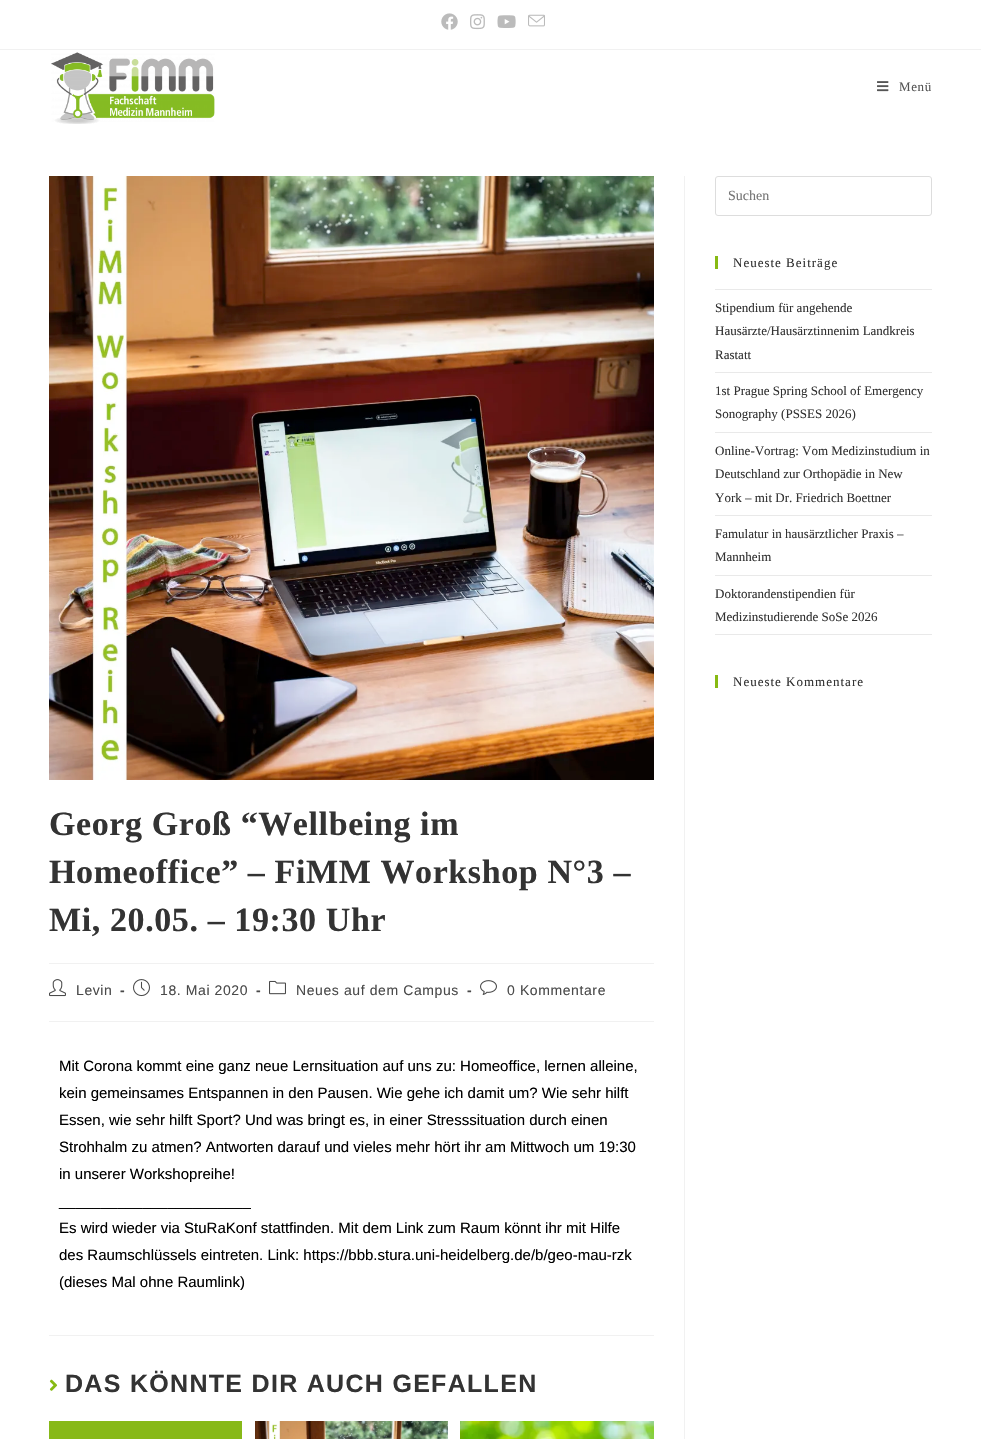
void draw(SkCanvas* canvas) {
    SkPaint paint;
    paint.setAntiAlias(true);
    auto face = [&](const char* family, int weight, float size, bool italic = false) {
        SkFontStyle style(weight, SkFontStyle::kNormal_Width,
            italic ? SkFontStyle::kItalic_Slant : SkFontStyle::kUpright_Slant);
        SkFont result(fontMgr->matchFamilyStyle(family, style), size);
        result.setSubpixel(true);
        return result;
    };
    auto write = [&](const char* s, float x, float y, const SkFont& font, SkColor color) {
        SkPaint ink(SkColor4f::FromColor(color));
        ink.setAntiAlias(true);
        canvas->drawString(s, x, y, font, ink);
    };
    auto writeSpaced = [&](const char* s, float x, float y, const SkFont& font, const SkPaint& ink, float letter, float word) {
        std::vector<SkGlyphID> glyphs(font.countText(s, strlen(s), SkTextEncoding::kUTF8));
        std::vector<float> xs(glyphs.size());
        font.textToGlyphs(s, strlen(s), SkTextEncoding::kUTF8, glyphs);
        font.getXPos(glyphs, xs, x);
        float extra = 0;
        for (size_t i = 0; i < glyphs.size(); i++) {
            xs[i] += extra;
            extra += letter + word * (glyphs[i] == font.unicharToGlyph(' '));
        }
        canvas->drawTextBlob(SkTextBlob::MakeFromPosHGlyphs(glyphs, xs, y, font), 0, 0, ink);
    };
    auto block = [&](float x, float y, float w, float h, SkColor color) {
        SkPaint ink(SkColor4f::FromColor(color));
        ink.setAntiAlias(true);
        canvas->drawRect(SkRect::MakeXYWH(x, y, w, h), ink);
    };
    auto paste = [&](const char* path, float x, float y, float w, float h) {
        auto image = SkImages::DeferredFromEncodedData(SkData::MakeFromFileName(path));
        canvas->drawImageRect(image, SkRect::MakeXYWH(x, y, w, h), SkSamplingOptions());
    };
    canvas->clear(SK_ColorWHITE);
    block(0, 49, 981, 1, SkColorSetRGB(241, 241, 241));
    paste("pic1.png", 441, 13, 17, 17);
    paste("pic2.png", 470, 14, 15, 16);
    paste("pic3.png", 497, 15, 19, 13);
    paste("pic4.png", 528, 14, 17, 13);
    paste("pic5.png", 51, 52, 164, 72);
    paste("pic6.png", 877, 81, 12, 11);
    auto kFont1 = face("Liberation Serif", 400, 13);
    paint.setColor(SkColorSetRGB(85, 85, 85));
    writeSpaced("Menü", 899, 91, kFont1, paint, 0.6f, 0);
    paint.setStyle(SkPaint::kStroke_Style);
    paint.setStrokeWidth(1);
    paint.setColor(SkColorSetRGB(221, 221, 221));
    canvas->drawRoundRect(SkRect::MakeXYWH(715.5f, 176.5f, 216, 39), 2.5f, 2.5f, paint);
    auto kFont2 = face("Liberation Serif", 400, 14);
    write("Suchen", 728, 200, kFont2, SkColorSetRGB(117, 117, 117));
    block(715, 256, 3, 13, SkColorSetRGB(135, 186, 19));
    paint.setStyle(SkPaint::kFill_Style);
    paint.setColor(SkColorSetRGB(51, 51, 51));
    writeSpaced("Neueste Beiträge", 733, 267, kFont1, paint, 1, 0);
    block(715, 289, 217, 1, SkColorSetRGB(233, 233, 233));
    block(715, 372, 217, 1, SkColorSetRGB(233, 233, 233));
    write("Stipendium für angehende", 715, 312, kFont1, SkColorSetRGB(51, 51, 51));
    write("Hausärzte/Hausärztinnenim Landkreis", 715, 335, kFont1, SkColorSetRGB(51, 51, 51));
    write("Rastatt", 715, 359, kFont1, SkColorSetRGB(51, 51, 51));
    block(715, 432, 217, 1, SkColorSetRGB(233, 233, 233));
    write("1st Prague Spring School of Emergency", 715, 395, kFont1, SkColorSetRGB(51, 51, 51));
    write("Sonography (PSSES 2026)", 715, 418, kFont1, SkColorSetRGB(51, 51, 51));
    block(715, 515, 217, 1, SkColorSetRGB(233, 233, 233));
    write("Online-Vortrag: Vom Medizinstudium in", 715, 455, kFont1, SkColorSetRGB(51, 51, 51));
    write("Deutschland zur Orthopädie in New", 715, 478, kFont1, SkColorSetRGB(51, 51, 51));
    write("York – mit Dr. Friedrich Boettner", 715, 502, kFont1, SkColorSetRGB(51, 51, 51));
    block(715, 575, 217, 1, SkColorSetRGB(233, 233, 233));
    write("Famulatur in hausärztlicher Praxis –", 715, 538, kFont1, SkColorSetRGB(51, 51, 51));
    write("Mannheim", 715, 561, kFont1, SkColorSetRGB(51, 51, 51));
    block(715, 634, 217, 1, SkColorSetRGB(233, 233, 233));
    write("Doktorandenstipendien für", 715, 598, kFont1, SkColorSetRGB(51, 51, 51));
    write("Medizinstudierende SoSe 2026", 715, 621, kFont1, SkColorSetRGB(51, 51, 51));
    block(715, 675, 3, 13, SkColorSetRGB(135, 186, 19));
    writeSpaced("Neueste Kommentare", 733, 686, kFont1, paint, 1, 0);
    block(684, 176, 1, 1263, SkColorSetRGB(241, 241, 241));
    paste("pic7.png", 49, 176, 605, 604);
    block(49, 963, 605, 1, SkColorSetRGB(241, 241, 241));
    auto kFont3 = face("Liberation Serif", 700, 34);
    writeSpaced("Georg Groß “Wellbeing im", 49, 835, kFont3, paint, 0.6f, 0);
    writeSpaced("Homeoffice” – FiMM Workshop N°3 –", 49, 883, kFont3, paint, 0.6f, 0);
    writeSpaced("Mi, 20.05. – 19:30 Uhr", 49, 931, kFont3, paint, 0.6f, 0);
    block(49, 1021, 605, 1, SkColorSetRGB(241, 241, 241));
    paste("pic8.png", 49, 979, 17, 18);
    auto kFont4 = face("Liberation Sans", 400, 14);
    paint.setColor(SkColorSetRGB(74, 74, 74));
    writeSpaced("Levin", 76, 995, kFont4, paint, 0.6f, 0);
    auto kFont5 = face("Liberation Sans", 700, 14);
    writeSpaced("-", 120, 995, kFont5, paint, 0.6f, 0);
    paste("pic9.png", 133, 979, 17, 18);
    writeSpaced("18. Mai 2020", 160, 995, kFont4, paint, 0.6f, 0);
    writeSpaced("-", 256, 995, kFont5, paint, 0.6f, 0);
    paste("pic10.png", 269, 980, 17, 15);
    writeSpaced("Neues auf dem Campus", 296, 995, kFont4, paint, 0.6f, 0);
    writeSpaced("-", 467, 995, kFont5, paint, 0.6f, 0);
    paste("pic11.png", 480, 980, 17, 15);
    writeSpaced("0 Kommentare", 507, 995, kFont4, paint, 0.6f, 0);
    auto kFont6 = face("Liberation Sans", 400, 15);
    write("Mit Corona kommt eine ganz neue Lernsituation auf uns zu: Homeoffice, lernen alleine,", 59, 1071, kFont6, SK_ColorBLACK);
    write("kein gemeinsames Entspannen in den Pausen. Wie gehe ich damit um? Wie sehr hilft", 59, 1098, kFont6, SK_ColorBLACK);
    write("Essen, wie sehr hilft Sport? Und was bringt es, in einer Stresssituation durch einen", 59, 1125, kFont6, SK_ColorBLACK);
    write("Strohhalm zu atmen? Antworten darauf und vieles mehr hört ihr am Mittwoch um 19:30", 59, 1152, kFont6, SK_ColorBLACK);
    write("in unserer Workshopreihe!", 59, 1179, kFont6, SK_ColorBLACK);
    write("_______________________", 59, 1206, kFont6, SK_ColorBLACK);
    write("Es wird wieder via StuRaKonf stattfinden. Mit dem Link zum Raum könnt ihr mit Hilfe", 59, 1233, kFont6, SK_ColorBLACK);
    write("des Raumschlüssels eintreten. Link: https://bbb.stura.uni-heidelberg.de/b/geo-mau-rzk", 59, 1260, kFont6, SK_ColorBLACK);
    write("(dieses Mal ohne Raumlink)", 59, 1287, kFont6, SK_ColorBLACK);
    block(49, 1335, 605, 1, SkColorSetRGB(241, 241, 241));
    paste("pic12.png", 49, 1379, 9, 12);
    auto kFont7 = face("Liberation Sans", 700, 25);
    paint.setColor(SkColorSetRGB(51, 51, 51));
    writeSpaced("DAS KÖNNTE DIR AUCH GEFALLEN", 65, 1392, kFont7, paint, 1.3f, 0);
    block(49, 1421, 193, 18, SkColorSetRGB(135, 185, 24));
    paste("pic13.png", 255, 1421, 193, 18);
    paste("pic14.png", 460, 1421, 194, 18);
}
